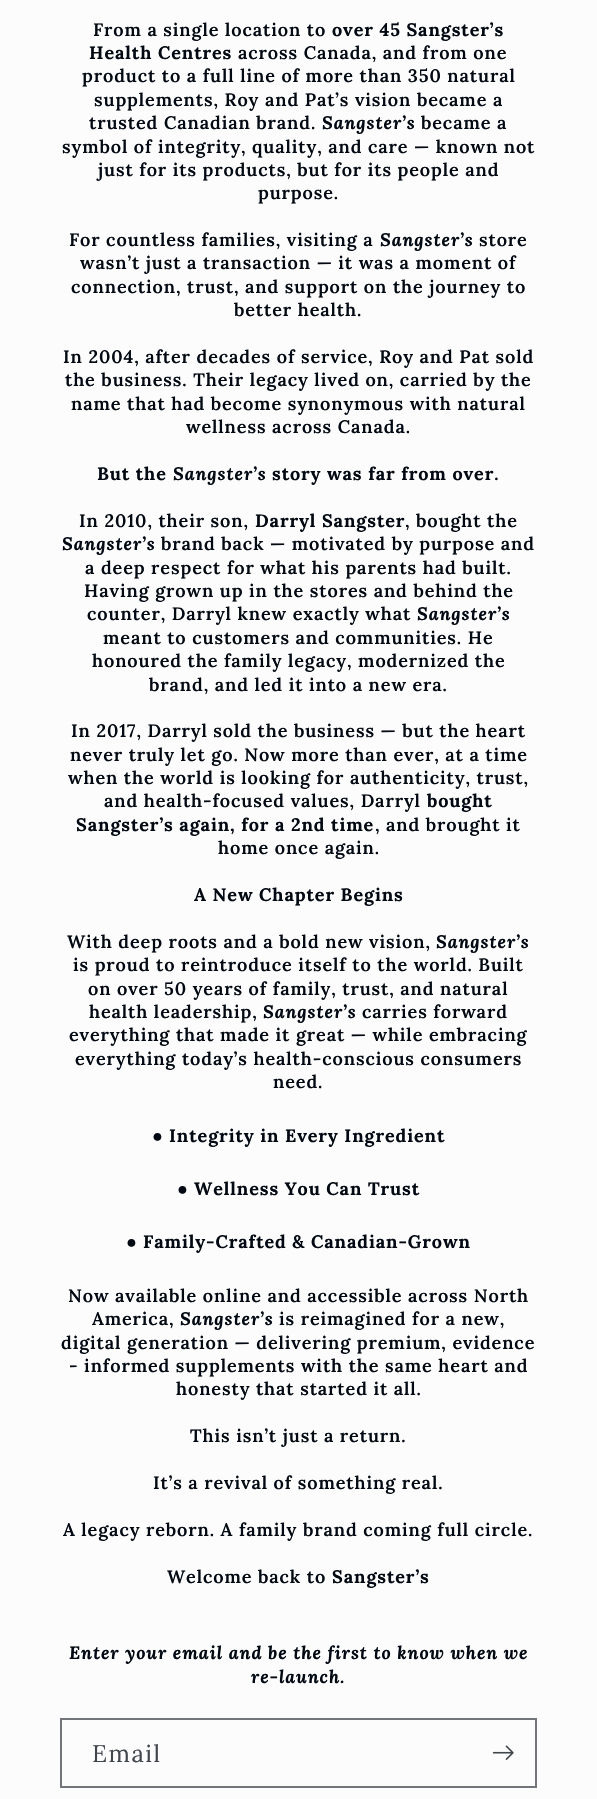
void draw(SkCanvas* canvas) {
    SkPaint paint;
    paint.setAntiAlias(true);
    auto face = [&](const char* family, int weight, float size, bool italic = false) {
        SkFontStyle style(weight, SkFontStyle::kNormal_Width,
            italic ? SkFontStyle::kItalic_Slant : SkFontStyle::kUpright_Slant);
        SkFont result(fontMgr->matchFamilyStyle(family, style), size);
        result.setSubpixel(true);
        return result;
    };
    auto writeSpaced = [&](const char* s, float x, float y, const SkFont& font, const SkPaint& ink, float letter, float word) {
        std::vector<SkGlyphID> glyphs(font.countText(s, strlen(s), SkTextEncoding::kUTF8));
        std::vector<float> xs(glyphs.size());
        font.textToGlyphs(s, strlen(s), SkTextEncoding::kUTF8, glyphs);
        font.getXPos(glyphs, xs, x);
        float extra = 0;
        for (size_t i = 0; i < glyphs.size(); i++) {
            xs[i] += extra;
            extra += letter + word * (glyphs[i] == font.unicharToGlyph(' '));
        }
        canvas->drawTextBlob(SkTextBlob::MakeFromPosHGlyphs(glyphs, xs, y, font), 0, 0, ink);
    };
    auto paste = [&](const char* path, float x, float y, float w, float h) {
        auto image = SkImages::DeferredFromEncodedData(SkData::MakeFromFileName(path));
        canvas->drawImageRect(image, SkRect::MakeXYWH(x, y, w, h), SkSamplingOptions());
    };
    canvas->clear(SkColorSetRGB(252, 252, 252));
    auto kFont1 = face("Lora", 600, 18);
    paint.setColor(SkColorSetRGB(2, 9, 18));
    writeSpaced("From a single location to", 93, 36, kFont1, paint, 0.9f, 0);
    auto kFont2 = face("Lora", 700, 18);
    writeSpaced("over 45 Sangster’s", 332, 36, kFont2, paint, 0.9f, 0);
    writeSpaced("Health Centres", 89, 59, kFont2, paint, 0.9f, 0);
    writeSpaced("across Canada, and from one", 238, 59, kFont1, paint, 0.9f, 0);
    writeSpaced("product to a full line of more than 350 natural", 82, 82, kFont1, paint, 0.9f, 0);
    writeSpaced("supplements, Roy and Pat’s vision became a", 94, 106, kFont1, paint, 0.9f, 0);
    writeSpaced("trusted Canadian brand.", 89, 129, kFont1, paint, 0.9f, 0);
    auto kFont3 = face("Lora", 700, 18, true);
    writeSpaced("Sangster’s", 322, 129, kFont3, paint, 0.9f, 0);
    writeSpaced("became a", 421, 129, kFont1, paint, 0.9f, 0);
    writeSpaced("symbol of integrity, quality, and care — known not", 62, 153, kFont1, paint, 0.9f, 0);
    writeSpaced("just for its products, but for its people and", 98, 176, kFont1, paint, 0.9f, 0);
    writeSpaced("purpose.", 258, 199, kFont1, paint, 0.9f, 0);
    writeSpaced("For countless families, visiting a", 69, 246, kFont1, paint, 0.9f, 0);
    writeSpaced("Sangster’s", 380, 246, kFont3, paint, 0.9f, 0);
    writeSpaced("store", 479, 246, kFont1, paint, 0.9f, 0);
    writeSpaced("wasn’t just a transaction — it was a moment of", 80, 269, kFont1, paint, 0.9f, 0);
    writeSpaced("connection, trust, and support on the journey to", 71, 293, kFont1, paint, 0.9f, 0);
    writeSpaced("better health.", 234, 316, kFont1, paint, 0.9f, 0);
    writeSpaced("In 2004, after decades of service, Roy and Pat sold", 63, 363, kFont1, paint, 0.9f, 0);
    writeSpaced("the business. Their legacy lived on, carried by the", 65, 386, kFont1, paint, 0.9f, 0);
    writeSpaced("name that had become synonymous with natural", 71, 410, kFont1, paint, 0.9f, 0);
    writeSpaced("wellness across Canada.", 186, 433, kFont1, paint, 0.9f, 0);
    writeSpaced("But the", 97, 480, kFont2, paint, 0.9f, 0);
    writeSpaced("Sangster’s", 173, 480, kFont3, paint, 0.9f, 0);
    writeSpaced("story was far from over.", 272, 480, kFont2, paint, 0.9f, 0);
    writeSpaced("In 2010, their son,", 79, 527, kFont1, paint, 0.9f, 0);
    writeSpaced("Darryl Sangster", 255, 527, kFont2, paint, 0.9f, 0);
    writeSpaced(", bought the", 405, 527, kFont1, paint, 0.9f, 0);
    writeSpaced("Sangster’s", 62, 550, kFont3, paint, 0.9f, 0);
    writeSpaced("brand back — motivated by purpose and", 161, 550, kFont1, paint, 0.9f, 0);
    writeSpaced("a deep respect for what his parents had built.", 85, 574, kFont1, paint, 0.9f, 0);
    writeSpaced("Having grown up in the stores and behind the", 84, 597, kFont1, paint, 0.9f, 0);
    writeSpaced("counter, Darryl knew exactly what", 87, 620, kFont1, paint, 0.9f, 0);
    writeSpaced("Sangster’s", 417, 620, kFont3, paint, 0.9f, 0);
    writeSpaced("meant to customers and communities. He", 103, 644, kFont1, paint, 0.9f, 0);
    writeSpaced("honoured the family legacy, modernized the", 92, 667, kFont1, paint, 0.9f, 0);
    writeSpaced("brand, and led it into a new era.", 149, 691, kFont1, paint, 0.9f, 0);
    writeSpaced("In 2017, Darryl sold the business — but the heart", 71, 737, kFont1, paint, 0.9f, 0);
    writeSpaced("never truly let go. Now more than ever, at a time", 70, 761, kFont1, paint, 0.9f, 0);
    writeSpaced("when the world is looking for authenticity, trust,", 68, 784, kFont1, paint, 0.9f, 0);
    writeSpaced("and health-focused values, Darryl", 104, 807, kFont1, paint, 0.9f, 0);
    writeSpaced("bought", 427, 807, kFont2, paint, 0.9f, 0);
    writeSpaced("Sangster’s again, for a 2nd time", 76, 831, kFont2, paint, 0.9f, 0);
    writeSpaced(", and brought it", 375, 831, kFont1, paint, 0.9f, 0);
    writeSpaced("home once again.", 218, 854, kFont1, paint, 0.9f, 0);
    writeSpaced("A New Chapter Begins", 194, 901, kFont2, paint, 0.9f, 0);
    writeSpaced("With deep roots and a bold new vision,", 67, 948, kFont1, paint, 0.9f, 0);
    writeSpaced("Sangster’s", 436, 948, kFont3, paint, 0.9f, 0);
    writeSpaced("is proud to reintroduce itself to the world. Built", 73, 971, kFont1, paint, 0.9f, 0);
    writeSpaced("on over 50 years of family, trust, and natural", 88, 995, kFont1, paint, 0.9f, 0);
    writeSpaced("health leadership,", 89, 1018, kFont1, paint, 0.9f, 0);
    writeSpaced("Sangster’s", 263, 1018, kFont3, paint, 0.9f, 0);
    writeSpaced("carries forward", 362, 1018, kFont1, paint, 0.9f, 0);
    writeSpaced("everything that made it great — while embracing", 69, 1041, kFont1, paint, 0.9f, 0);
    writeSpaced("everything today’s health-conscious consumers", 75, 1065, kFont1, paint, 0.9f, 0);
    writeSpaced("need.", 273, 1088, kFont1, paint, 0.9f, 0);
    auto kFont4 = face("Liberation Serif", 700, 18);
    writeSpaced("●", 152, 1142, kFont4, paint, 0.9f, 0);
    writeSpaced("Integrity in Every Ingredient", 169, 1142, kFont2, paint, 0.9f, 0);
    writeSpaced("●", 177, 1195, kFont4, paint, 0.9f, 0);
    writeSpaced("Wellness You Can Trust", 194, 1195, kFont2, paint, 0.9f, 0);
    writeSpaced("●", 126, 1248, kFont4, paint, 0.9f, 0);
    writeSpaced("Family-Crafted & Canadian-Grown", 143, 1248, kFont2, paint, 0.9f, 0);
    writeSpaced("Now available online and accessible across North", 68, 1302, kFont1, paint, 0.9f, 0);
    writeSpaced("America,", 92, 1325, kFont1, paint, 0.9f, 0);
    writeSpaced("Sangster’s", 180, 1325, kFont3, paint, 0.9f, 0);
    writeSpaced("is reimagined for a new,", 279, 1325, kFont1, paint, 0.9f, 0);
    writeSpaced("digital generation — delivering premium, evidence", 61, 1349, kFont1, paint, 0.9f, 0);
    writeSpaced("- informed supplements with the same heart and", 69, 1372, kFont1, paint, 0.9f, 0);
    writeSpaced("honesty that started it all.", 176, 1395, kFont1, paint, 0.9f, 0);
    writeSpaced("This isn’t just a return.", 190, 1442, kFont1, paint, 0.9f, 0);
    writeSpaced("It’s a revival of something real.", 153, 1489, kFont1, paint, 0.9f, 0);
    writeSpaced("A legacy reborn. A family brand coming full circle.", 63, 1536, kFont1, paint, 0.9f, 0);
    writeSpaced("Welcome back to", 167, 1583, kFont1, paint, 0.9f, 0);
    writeSpaced("Sangster’s", 332, 1583, kFont2, paint, 0.9f, 0);
    writeSpaced("Enter your email and be the first to know when we", 69, 1659, kFont3, paint, 0.9f, 0);
    writeSpaced("re-launch.", 251, 1683, kFont3, paint, 0.9f, 0);
    paint.setStyle(SkPaint::kStroke_Style);
    paint.setStrokeWidth(2);
    paint.setColor(SkColorSetRGB(114, 118, 123));
    canvas->drawRect(SkRect::MakeXYWH(61, 1719, 475, 68), paint);
    auto kFont5 = face("Lora", 400, 24);
    paint.setStyle(SkPaint::kFill_Style);
    paint.setColor(SkColorSetRGB(65, 70, 77));
    writeSpaced("Email", 92, 1762, kFont5, paint, 1.5f, 0);
    paste("pic1.png", 492, 1745, 22, 15);
}
